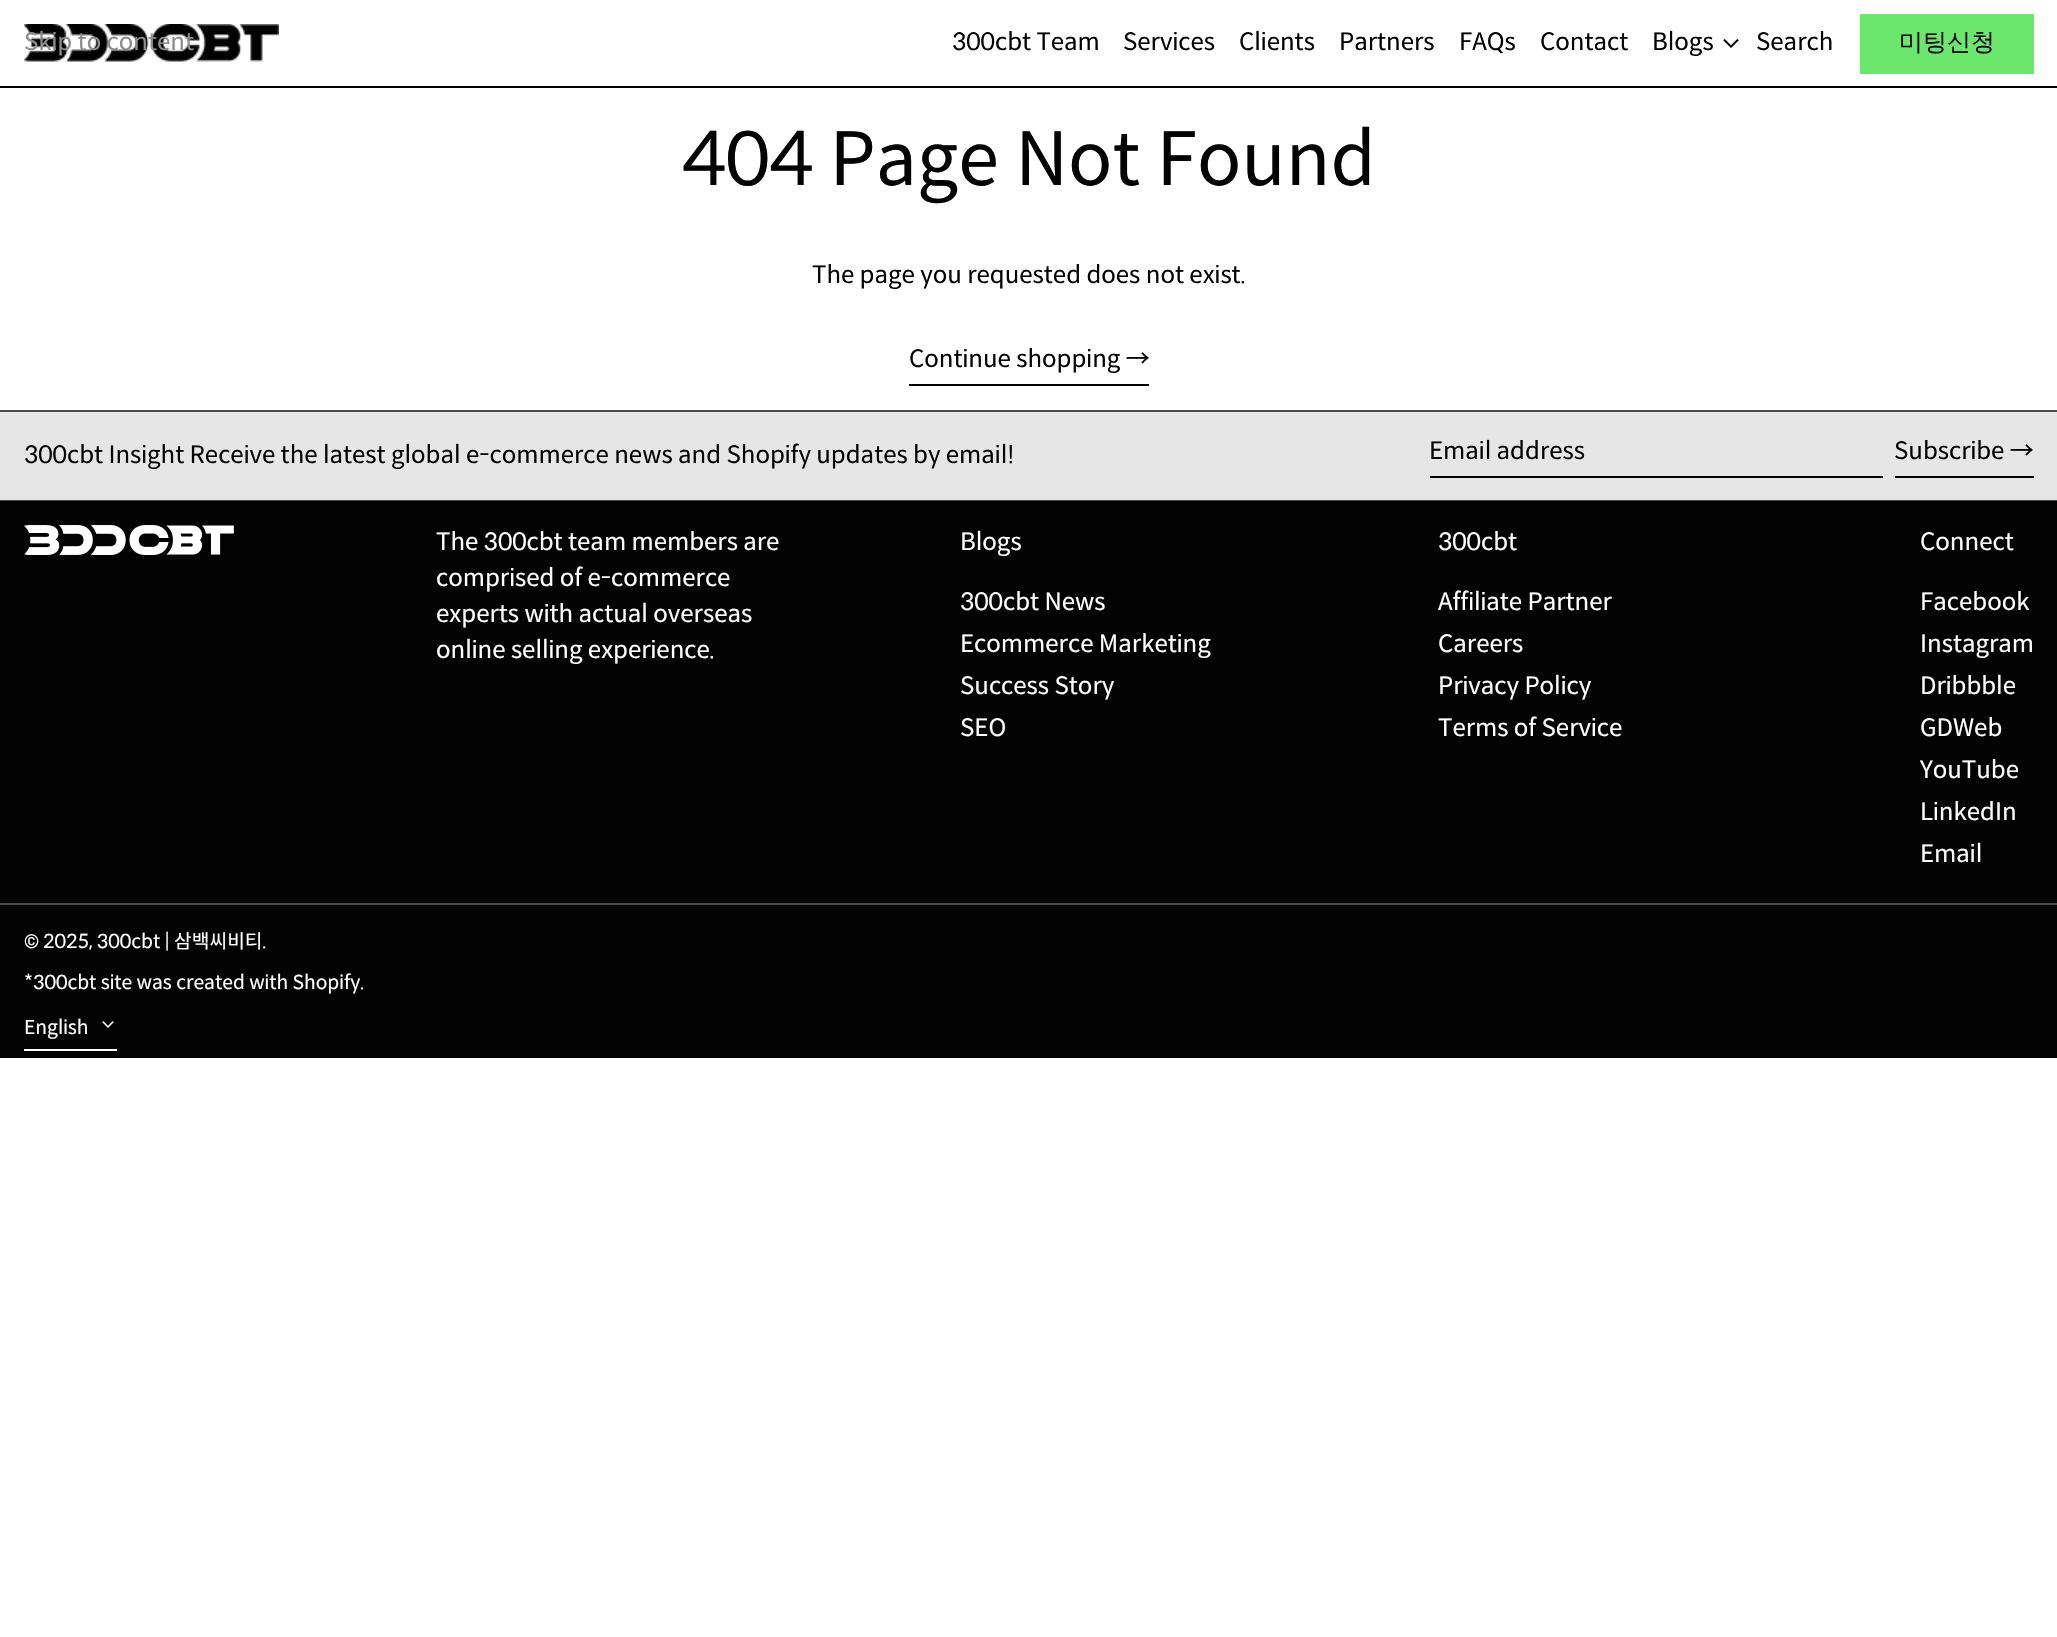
void draw(SkCanvas* canvas) {
    SkPaint paint;
    paint.setAntiAlias(true);
    auto face = [&](const char* family, int weight, float size, bool italic = false) {
        SkFontStyle style(weight, SkFontStyle::kNormal_Width,
            italic ? SkFontStyle::kItalic_Slant : SkFontStyle::kUpright_Slant);
        SkFont result(fontMgr->matchFamilyStyle(family, style), size);
        result.setSubpixel(true);
        return result;
    };
    auto write = [&](const char* s, float x, float y, const SkFont& font, SkColor color) {
        SkPaint ink(SkColor4f::FromColor(color));
        ink.setAntiAlias(true);
        canvas->drawString(s, x, y, font, ink);
    };
    auto block = [&](float x, float y, float w, float h, SkColor color) {
        SkPaint ink(SkColor4f::FromColor(color));
        ink.setAntiAlias(true);
        canvas->drawRect(SkRect::MakeXYWH(x, y, w, h), ink);
    };
    auto paste = [&](const char* path, float x, float y, float w, float h) {
        auto image = SkImages::DeferredFromEncodedData(SkData::MakeFromFileName(path));
        canvas->drawImageRect(image, SkRect::MakeXYWH(x, y, w, h), SkSamplingOptions());
    };
    canvas->clear(SK_ColorWHITE);
    block(0, 86, 2057, 2, SkColorSetRGB(3, 3, 3));
    paste("pic1.png", 24, 24, 255, 38);
    auto kFont1 = face("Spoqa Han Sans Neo", 400, 24);
    write("300cbt Team", 952, 50, kFont1, SkColorSetRGB(3, 3, 3));
    write("Services", 1123, 50, kFont1, SkColorSetRGB(3, 3, 3));
    write("Clients", 1239, 50, kFont1, SkColorSetRGB(3, 3, 3));
    write("Partners", 1339, 50, kFont1, SkColorSetRGB(3, 3, 3));
    write("FAQs", 1459, 50, kFont1, SkColorSetRGB(3, 3, 3));
    write("Contact", 1540, 50, kFont1, SkColorSetRGB(3, 3, 3));
    write("Blogs", 1652, 50, kFont1, SkColorSetRGB(3, 3, 3));
    paste("pic2.png", 1723, 39, 16, 9);
    write("Search", 1756, 50, kFont1, SkColorSetRGB(3, 3, 3));
    block(1860, 14, 174, 60, SkColorSetRGB(108, 231, 109));
    auto kFont2 = face("WenQuanYi Zen Hei", 500, 24);
    write("미팅신청", 1899, 50, kFont2, SkColorSetRGB(3, 3, 3));
    auto kFont3 = face("Spoqa Han Sans Neo", 400, 73.25f);
    write("404 Page Not Found", 682, 185, kFont3, SkColorSetRGB(3, 3, 3));
    write("The page you requested does not exist.", 812, 283, kFont1, SkColorSetRGB(3, 3, 3));
    block(909, 384, 240, 2, SkColorSetRGB(3, 3, 3));
    write("Continue shopping →", 909, 367, kFont1, SkColorSetRGB(3, 3, 3));
    block(0, 905, 2057, 153, SkColorSetRGB(3, 3, 3));
    block(0, 412, 2057, 88, SkColorSetRGB(230, 230, 230));
    block(0, 410, 2057, 2, SkColorSetRGB(73, 73, 73));
    write("300cbt Insight Receive the latest global e-commerce news and Shopify updates by email!", 24, 463, kFont1, SkColorSetRGB(3, 3, 3));
    block(1430, 476, 453, 2, SkColorSetRGB(3, 3, 3));
    write("Email address", 1429, 459, kFont1, SkColorSetRGB(3, 3, 3));
    block(1895, 476, 139, 2, SkColorSetRGB(3, 3, 3));
    write("Subscribe →", 1894, 459, kFont1, SkColorSetRGB(3, 3, 3));
    block(0, 500, 2057, 1, SkColorSetRGB(73, 73, 73));
    block(0, 501, 2057, 402, SkColorSetRGB(3, 3, 3));
    paste("pic3.png", 24, 525, 210, 30);
    write("The 300cbt team members are", 436, 550, kFont1, SK_ColorWHITE);
    write("comprised of e-commerce", 436, 586, kFont1, SK_ColorWHITE);
    write("experts with actual overseas", 436, 622, kFont1, SK_ColorWHITE);
    write("online selling experience.", 436, 658, kFont1, SK_ColorWHITE);
    write("Blogs", 960, 550, kFont1, SK_ColorWHITE);
    write("300cbt News", 960, 610, kFont1, SK_ColorWHITE);
    write("Ecommerce Marketing", 960, 652, kFont1, SK_ColorWHITE);
    write("Success Story", 960, 694, kFont1, SK_ColorWHITE);
    write("SEO", 960, 736, kFont1, SK_ColorWHITE);
    write("300cbt", 1438, 550, kFont1, SK_ColorWHITE);
    write("Affiliate Partner", 1438, 610, kFont1, SK_ColorWHITE);
    write("Careers", 1438, 652, kFont1, SK_ColorWHITE);
    write("Privacy Policy", 1438, 694, kFont1, SK_ColorWHITE);
    write("Terms of Service", 1438, 736, kFont1, SK_ColorWHITE);
    write("Connect", 1920, 550, kFont1, SK_ColorWHITE);
    write("Facebook", 1920, 610, kFont1, SK_ColorWHITE);
    write("Instagram", 1920, 652, kFont1, SK_ColorWHITE);
    write("Dribbble", 1920, 694, kFont1, SK_ColorWHITE);
    write("GDWeb", 1920, 736, kFont1, SK_ColorWHITE);
    write("YouTube", 1920, 778, kFont1, SK_ColorWHITE);
    write("LinkedIn", 1920, 820, kFont1, SK_ColorWHITE);
    write("Email", 1920, 862, kFont1, SK_ColorWHITE);
    block(0, 903, 2057, 2, SkColorSetRGB(73, 73, 73));
    auto kFont4 = face("Roboto", 400, 19.25f);
    write("©", 24, 948, kFont4, SK_ColorWHITE);
    auto kFont5 = face("Spoqa Han Sans Neo", 400, 19.25f);
    write("2025, 300cbt | 삼백씨비티.", 43, 948, kFont5, SK_ColorWHITE);
    write("*300cbt site was created with Shopify.", 24, 989, kFont5, SK_ColorWHITE);
    block(24, 1049, 93, 2, SK_ColorWHITE);
    write("English", 24, 1034, kFont5, SK_ColorWHITE);
    paste("pic4.png", 102, 1021, 12, 7);
    write("Skip to content", 24, 50, kFont1, SkColorSetRGB(141, 141, 141));
}
